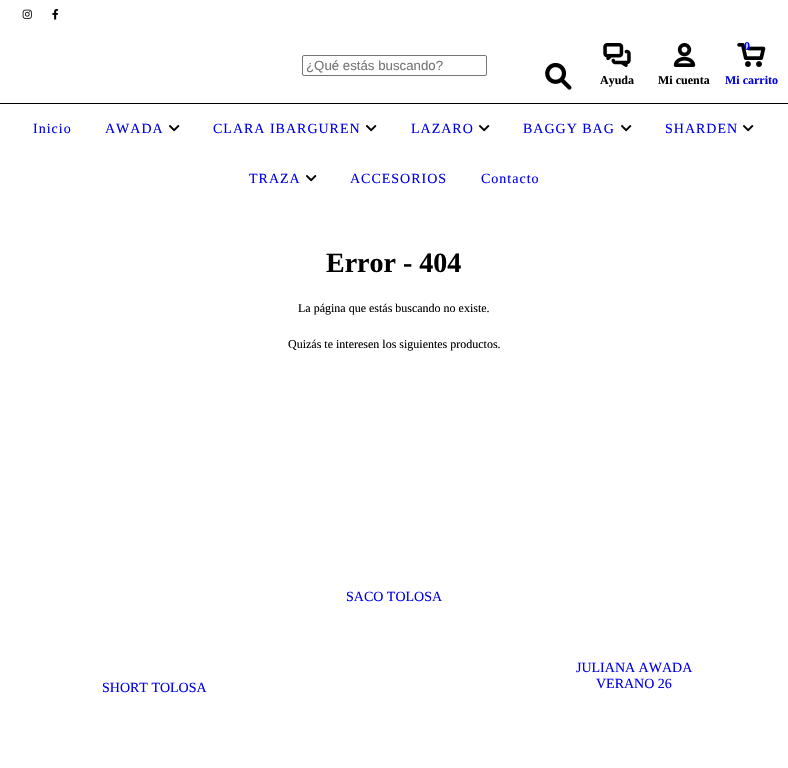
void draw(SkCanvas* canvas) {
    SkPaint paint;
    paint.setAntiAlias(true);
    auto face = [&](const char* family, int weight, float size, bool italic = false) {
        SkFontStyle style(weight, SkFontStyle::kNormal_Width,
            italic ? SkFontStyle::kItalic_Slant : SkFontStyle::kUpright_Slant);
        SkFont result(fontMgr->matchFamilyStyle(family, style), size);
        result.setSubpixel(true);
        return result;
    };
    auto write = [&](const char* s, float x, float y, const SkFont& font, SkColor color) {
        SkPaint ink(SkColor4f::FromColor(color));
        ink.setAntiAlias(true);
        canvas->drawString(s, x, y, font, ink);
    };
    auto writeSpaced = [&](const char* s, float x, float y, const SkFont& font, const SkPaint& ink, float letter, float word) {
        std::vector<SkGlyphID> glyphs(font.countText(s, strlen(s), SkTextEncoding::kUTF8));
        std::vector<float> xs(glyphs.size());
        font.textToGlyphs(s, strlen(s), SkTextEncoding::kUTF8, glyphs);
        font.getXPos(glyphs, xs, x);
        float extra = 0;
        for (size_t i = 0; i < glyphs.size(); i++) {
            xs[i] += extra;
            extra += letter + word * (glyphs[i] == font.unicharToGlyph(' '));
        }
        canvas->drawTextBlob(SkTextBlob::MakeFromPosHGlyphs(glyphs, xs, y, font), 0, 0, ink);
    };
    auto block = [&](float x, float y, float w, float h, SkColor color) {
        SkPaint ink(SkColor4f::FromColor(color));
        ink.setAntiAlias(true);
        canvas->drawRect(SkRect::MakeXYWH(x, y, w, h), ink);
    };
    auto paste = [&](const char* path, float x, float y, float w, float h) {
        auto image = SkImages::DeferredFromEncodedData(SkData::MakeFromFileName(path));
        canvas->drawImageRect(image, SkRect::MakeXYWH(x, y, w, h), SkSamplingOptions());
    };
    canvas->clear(SK_ColorWHITE);
    paste("pic1.png", 22, 9, 10, 10);
    paste("pic2.png", 52, 9, 7, 11);
    paint.setStyle(SkPaint::kStroke_Style);
    paint.setStrokeWidth(1);
    paint.setColor(SkColorSetRGB(118, 118, 118));
    canvas->drawRoundRect(SkRect::MakeXYWH(302.5f, 55.5f, 184, 20), 1.5f, 1.5f, paint);
    auto kFont1 = face("Liberation Sans", 400, 13.25f);
    write("¿Qué estás buscando?", 306, 70, kFont1, SkColorSetRGB(117, 117, 117));
    paste("pic3.png", 545, 63, 27, 27);
    paste("pic4.png", 603, 43, 28, 24);
    auto kFont2 = face("Liberation Serif", 700, 12);
    write("Ayuda", 600, 84, kFont2, SK_ColorBLACK);
    paste("pic5.png", 673, 43, 23, 24);
    write("Mi cuenta", 658, 84, kFont2, SK_ColorBLACK);
    paste("pic6.png", 737, 43, 29, 24);
    write("0", 744, 50, kFont2, SkColorSetRGB(0, 0, 238));
    write("Mi carrito", 725, 84, kFont2, SkColorSetRGB(0, 0, 238));
    block(0, 103, 788, 1, SK_ColorBLACK);
    auto kFont3 = face("Liberation Serif", 400, 14);
    paint.setStyle(SkPaint::kFill_Style);
    paint.setColor(SkColorSetRGB(0, 0, 238));
    writeSpaced("Inicio", 33, 133, kFont3, paint, 1, 0);
    writeSpaced("AWADA", 105, 133, kFont3, paint, 1, 0);
    paste("pic7.png", 169, 125, 11, 7);
    writeSpaced("CLARA IBARGUREN", 213, 133, kFont3, paint, 1, 0);
    paste("pic7.png", 366, 125, 11, 7);
    writeSpaced("LAZARO", 411, 133, kFont3, paint, 1, 0);
    paste("pic7.png", 479, 125, 11, 7);
    writeSpaced("BAGGY BAG", 523, 133, kFont3, paint, 1, 0);
    paste("pic7.png", 621, 125, 11, 7);
    writeSpaced("SHARDEN", 665, 133, kFont3, paint, 1, 0);
    paste("pic7.png", 743, 125, 11, 7);
    writeSpaced("TRAZA", 249, 183, kFont3, paint, 1, 0);
    paste("pic7.png", 306, 175, 11, 7);
    writeSpaced("ACCESORIOS", 350, 183, kFont3, paint, 1, 0);
    writeSpaced("Contacto", 481, 183, kFont3, paint, 1, 0);
    auto kFont4 = face("Liberation Serif", 700, 28);
    write("Error - 404", 326, 272, kFont4, SK_ColorBLACK);
    auto kFont5 = face("Liberation Serif", 400, 12);
    write("La página que estás buscando no existe.", 298, 312, kFont5, SK_ColorBLACK);
    write("Quizás te interesen los siguientes productos.", 288, 348, kFont5, SK_ColorBLACK);
    write("SACO TOLOSA", 346, 601, kFont3, SkColorSetRGB(0, 0, 238));
    write("SHORT TOLOSA", 102, 692, kFont3, SkColorSetRGB(0, 0, 238));
    write("JULIANA AWADA", 576, 672, kFont3, SkColorSetRGB(0, 0, 238));
    write("VERANO 26", 596, 688, kFont3, SkColorSetRGB(0, 0, 238));
}
